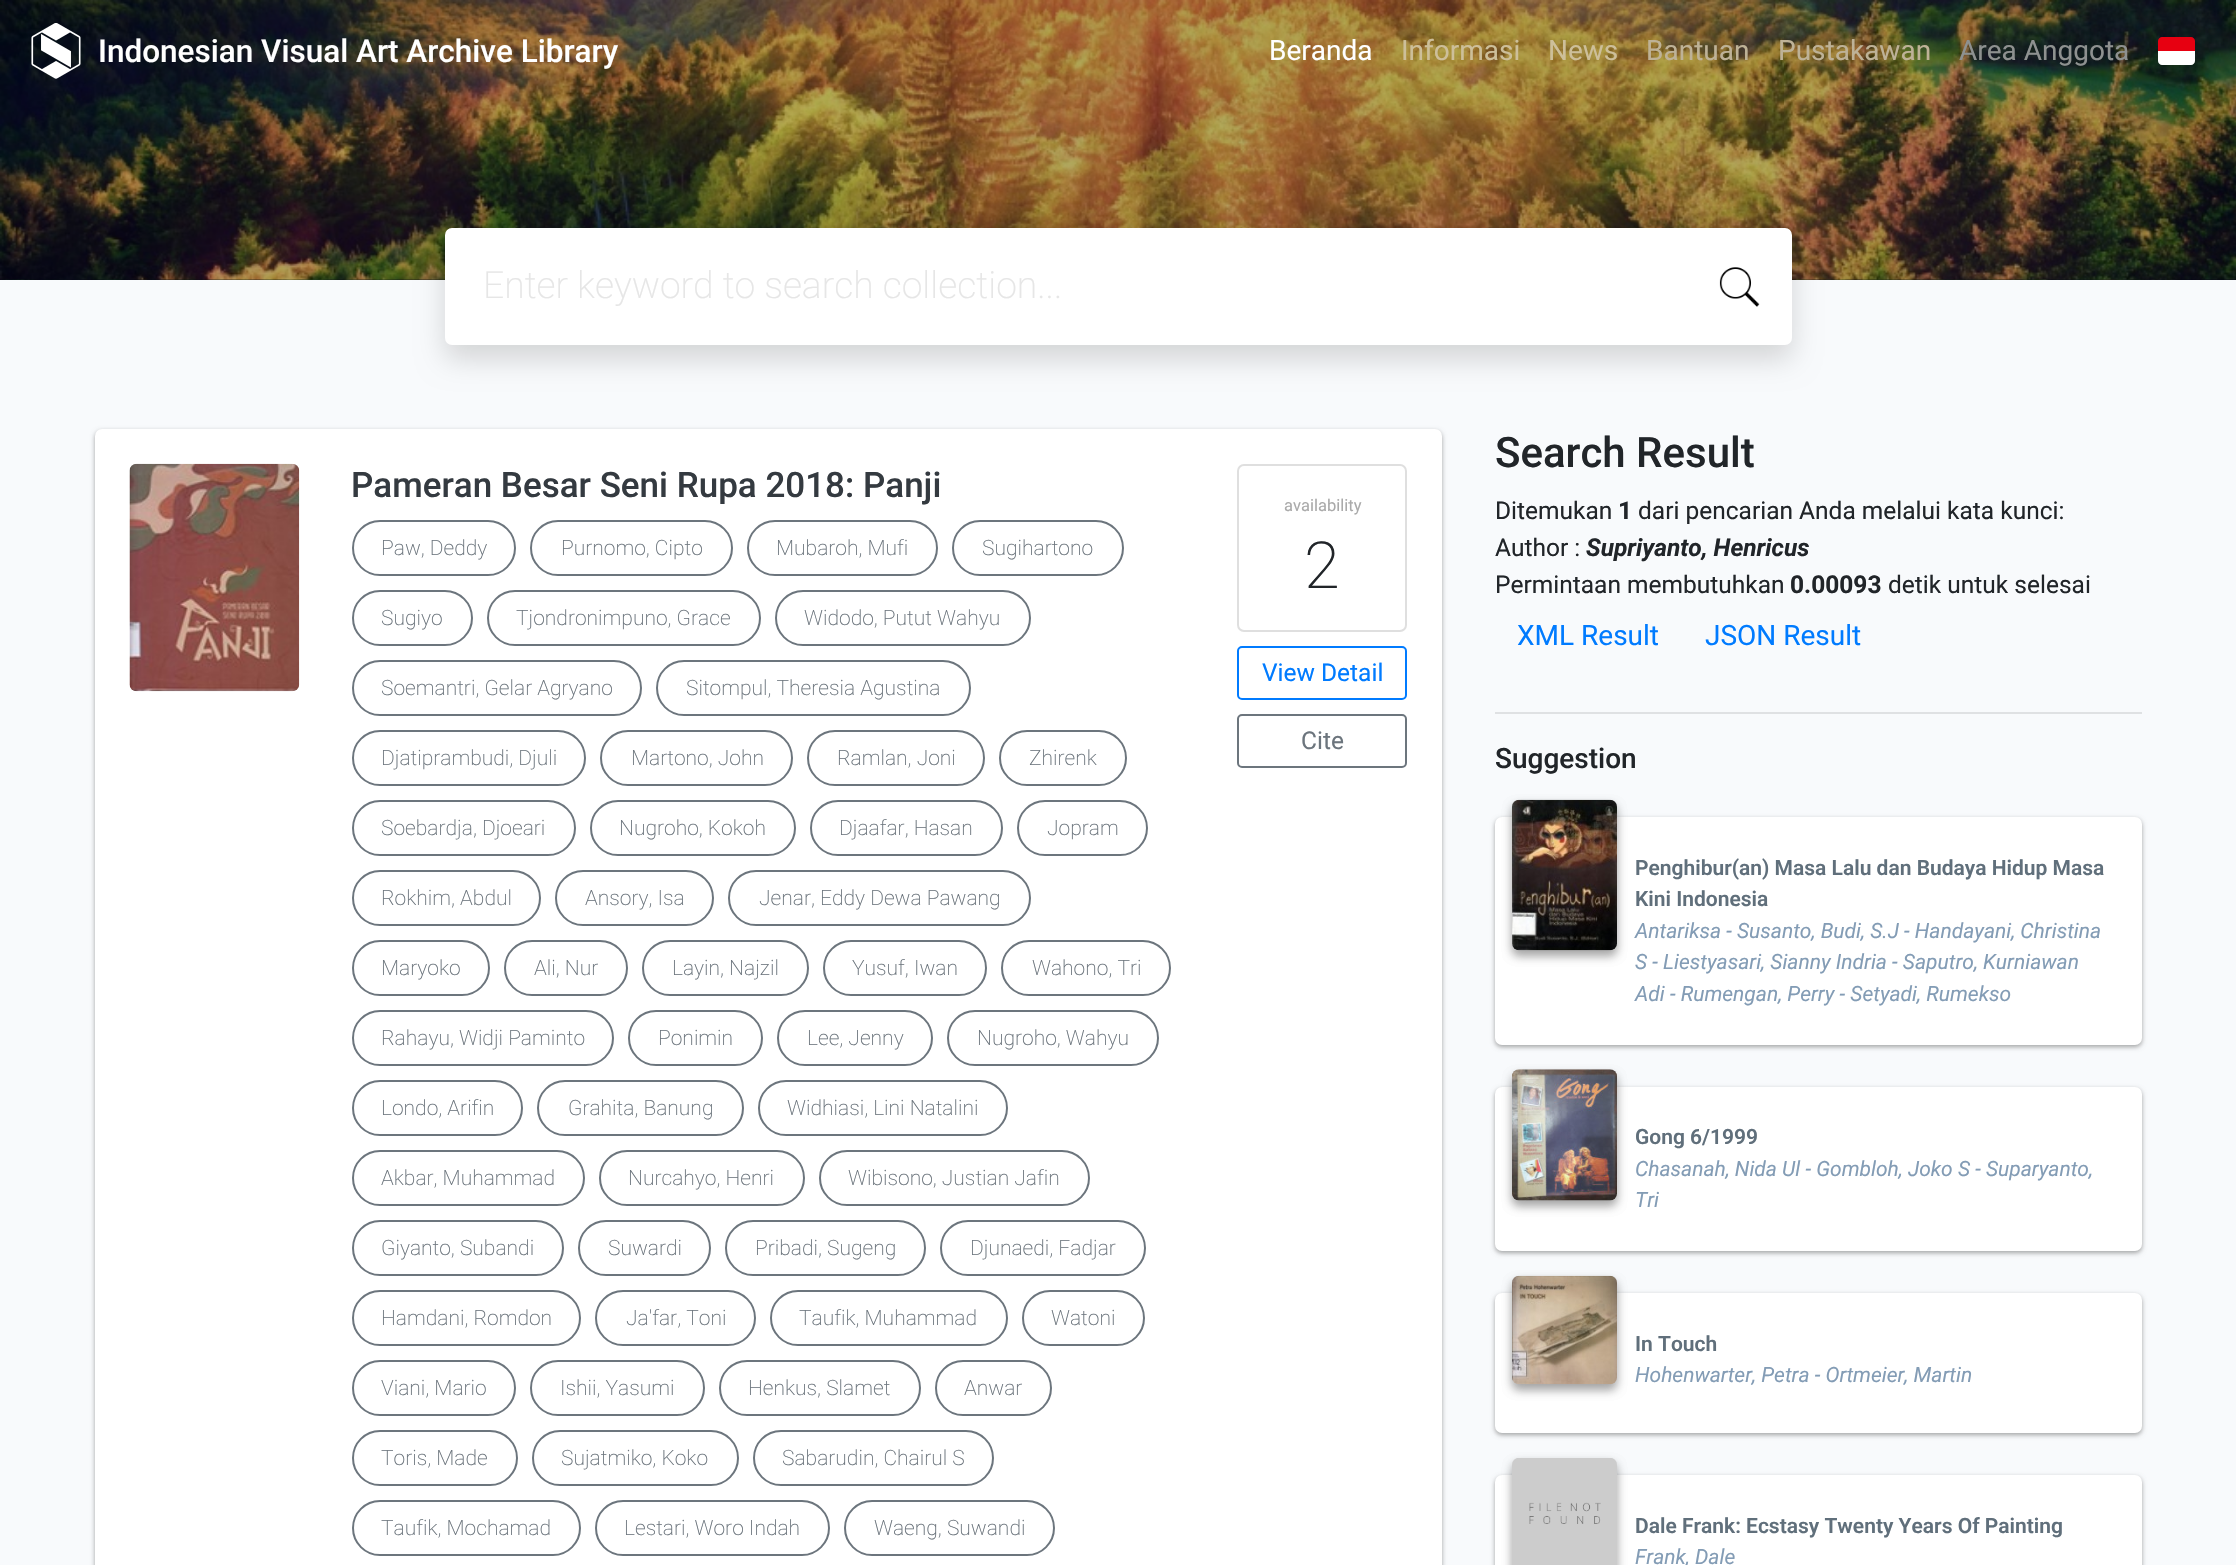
void draw(SkCanvas* canvas) {
    SkPaint paint;
    paint.setAntiAlias(true);
    auto face = [&](const char* family, int weight, float size, bool italic = false) {
        SkFontStyle style(weight, SkFontStyle::kNormal_Width,
            italic ? SkFontStyle::kItalic_Slant : SkFontStyle::kUpright_Slant);
        SkFont result(fontMgr->matchFamilyStyle(family, style), size);
        result.setSubpixel(true);
        return result;
    };
    auto write = [&](const char* s, float x, float y, const SkFont& font, SkColor color) {
        SkPaint ink(SkColor4f::FromColor(color));
        ink.setAntiAlias(true);
        canvas->drawString(s, x, y, font, ink);
    };
    auto block = [&](float x, float y, float w, float h, SkColor color) {
        SkPaint ink(SkColor4f::FromColor(color));
        ink.setAntiAlias(true);
        canvas->drawRect(SkRect::MakeXYWH(x, y, w, h), ink);
    };
    auto card = [&](float x, float y, float w, float h, float radius, SkColor color) {
        SkPaint ink(SkColor4f::FromColor(color));
        ink.setAntiAlias(true);
        canvas->drawRoundRect(SkRect::MakeXYWH(x, y, w, h), radius, radius, ink);
    };
    auto paste = [&](const char* path, float x, float y, float w, float h) {
        auto image = SkImages::DeferredFromEncodedData(SkData::MakeFromFileName(path));
        canvas->drawImageRect(image, SkRect::MakeXYWH(x, y, w, h), SkSamplingOptions());
    };
    canvas->clear(SkColorSetRGB(248, 250, 252));
    paste("pic1.png", 0, 279, 2236, 1);
    paste("pic2.png", 0, 0, 2236, 280);
    paste("pic3.png", 31, 23, 50, 56);
    auto kFont1 = face("Roboto", 500, 31.5f);
    write("Indonesian Visual Art Archive Library", 98, 62, kFont1, SK_ColorWHITE);
    auto kFont2 = face("Roboto", 400, 28);
    write("Beranda", 1269, 60, kFont2, SK_ColorWHITE);
    write("Informasi", 1401, 60, kFont2, SkColorSetRGB(205, 191, 154));
    write("News", 1548, 60, kFont2, SkColorSetRGB(205, 191, 154));
    write("Bantuan", 1646, 60, kFont2, SkColorSetRGB(190, 178, 151));
    write("Pustakawan", 1778, 60, kFont2, SkColorSetRGB(190, 178, 151));
    write("Area Anggota", 1959, 60, kFont2, SkColorSetRGB(142, 145, 144));
    paint.setColor(SkColorSetRGB(231, 0, 17));
    canvas->drawPath(SkPathBuilder().moveTo(2162, 37).lineTo(2191, 37).cubicTo(2193, 37, 2195, 39, 2195, 41).lineTo(2195, 52).lineTo(2158, 52).lineTo(2158, 41).cubicTo(2158, 39, 2160, 37, 2162, 37).close().detach(), paint);
    paint.setColor(SK_ColorWHITE);
    canvas->drawPath(SkPathBuilder().moveTo(2158, 51).lineTo(2195, 51).lineTo(2195, 61).cubicTo(2195, 63, 2193, 65, 2191, 65).lineTo(2162, 65).cubicTo(2160, 65, 2158, 63, 2158, 61).close().detach(), paint);
    paint.setColor(SkColorSetARGB(38, 0, 0, 0));
    paint.setMaskFilter(SkMaskFilter::MakeBlur(kNormal_SkBlurStyle, 14));
    canvas->drawRoundRect(SkRect::MakeXYWH(445, 242, 1347, 117), 7, 7, paint);
    paint.setMaskFilter(nullptr);
    card(445, 228, 1347, 117, 7, SK_ColorWHITE);
    paste("pic4.png", 1719, 267, 41, 40);
    auto kFont3 = face("Roboto", 200, 37.3f);
    write("Enter keyword to search collection...", 483, 298, kFont3, SkColorSetRGB(230, 230, 230));
    paint.setColor(SkColorSetARGB(61, 0, 0, 0));
    paint.setMaskFilter(SkMaskFilter::MakeBlur(kNormal_SkBlurStyle, 2));
    canvas->drawRoundRect(SkRect::MakeXYWH(95, 431, 1347, 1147), 7, 7, paint);
    paint.setMaskFilter(nullptr);
    paint.setColor(SkColorSetARGB(31, 0, 0, 0));
    paint.setMaskFilter(SkMaskFilter::MakeBlur(kNormal_SkBlurStyle, 2.5f));
    canvas->drawRoundRect(SkRect::MakeXYWH(95, 431, 1347, 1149), 7, 7, paint);
    paint.setMaskFilter(nullptr);
    card(95, 429, 1347, 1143, 7, SK_ColorWHITE);
    paste("pic5.png", 129, 463, 171, 229);
    auto kFont4 = face("Roboto", 500, 35);
    write("Pameran Besar Seni Rupa 2018: Panji", 351, 497, kFont4, SkColorSetRGB(52, 58, 64));
    paint.setStyle(SkPaint::kStroke_Style);
    paint.setStrokeWidth(2);
    paint.setColor(SkColorSetRGB(108, 117, 125));
    canvas->drawRoundRect(SkRect::MakeXYWH(353, 521, 162, 54), 27, 27, paint);
    auto kFont5 = face("Roboto", 200, 21);
    write("Paw, Deddy", 381, 555, kFont5, SkColorSetRGB(108, 117, 125));
    canvas->drawRoundRect(SkRect::MakeXYWH(531, 521, 201, 54), 27, 27, paint);
    write("Purnomo, Cipto", 561, 555, kFont5, SkColorSetRGB(108, 117, 125));
    canvas->drawRoundRect(SkRect::MakeXYWH(748, 521, 189, 54), 27, 27, paint);
    write("Mubaroh, Mufi", 776, 555, kFont5, SkColorSetRGB(108, 117, 125));
    canvas->drawRoundRect(SkRect::MakeXYWH(953, 521, 170, 54), 27, 27, paint);
    write("Sugihartono", 982, 555, kFont5, SkColorSetRGB(108, 117, 125));
    canvas->drawRoundRect(SkRect::MakeXYWH(353, 591, 119, 54), 27, 27, paint);
    write("Sugiyo", 381, 625, kFont5, SkColorSetRGB(108, 117, 125));
    canvas->drawRoundRect(SkRect::MakeXYWH(488, 591, 272, 54), 27, 27, paint);
    write("Tjondronimpuno, Grace", 516, 625, kFont5, SkColorSetRGB(108, 117, 125));
    canvas->drawRoundRect(SkRect::MakeXYWH(776, 591, 254, 54), 27, 27, paint);
    write("Widodo, Putut Wahyu", 804, 625, kFont5, SkColorSetRGB(108, 117, 125));
    canvas->drawRoundRect(SkRect::MakeXYWH(353, 661, 288, 54), 27, 27, paint);
    write("Soemantri, Gelar Agryano", 381, 695, kFont5, SkColorSetRGB(108, 117, 125));
    canvas->drawRoundRect(SkRect::MakeXYWH(657, 661, 313, 54), 27, 27, paint);
    write("Sitompul, Theresia Agustina", 686, 695, kFont5, SkColorSetRGB(108, 117, 125));
    canvas->drawRoundRect(SkRect::MakeXYWH(353, 731, 232, 54), 27, 27, paint);
    write("Djatiprambudi, Djuli", 381, 765, kFont5, SkColorSetRGB(108, 117, 125));
    canvas->drawRoundRect(SkRect::MakeXYWH(601, 731, 191, 54), 27, 27, paint);
    write("Martono, John", 631, 765, kFont5, SkColorSetRGB(108, 117, 125));
    canvas->drawRoundRect(SkRect::MakeXYWH(808, 731, 176, 54), 27, 27, paint);
    write("Ramlan, Joni", 837, 765, kFont5, SkColorSetRGB(108, 117, 125));
    canvas->drawRoundRect(SkRect::MakeXYWH(1000, 731, 126, 54), 27, 27, paint);
    write("Zhirenk", 1029, 765, kFont5, SkColorSetRGB(108, 117, 125));
    canvas->drawRoundRect(SkRect::MakeXYWH(353, 801, 222, 54), 27, 27, paint);
    write("Soebardja, Djoeari", 381, 835, kFont5, SkColorSetRGB(108, 117, 125));
    canvas->drawRoundRect(SkRect::MakeXYWH(591, 801, 204, 54), 27, 27, paint);
    write("Nugroho, Kokoh", 619, 835, kFont5, SkColorSetRGB(108, 117, 125));
    canvas->drawRoundRect(SkRect::MakeXYWH(811, 801, 191, 54), 27, 27, paint);
    write("Djaafar, Hasan", 839, 835, kFont5, SkColorSetRGB(108, 117, 125));
    canvas->drawRoundRect(SkRect::MakeXYWH(1018, 801, 129, 54), 27, 27, paint);
    write("Jopram", 1047, 835, kFont5, SkColorSetRGB(108, 117, 125));
    canvas->drawRoundRect(SkRect::MakeXYWH(353, 871, 187, 54), 27, 27, paint);
    write("Rokhim, Abdul", 381, 905, kFont5, SkColorSetRGB(108, 117, 125));
    canvas->drawRoundRect(SkRect::MakeXYWH(556, 871, 157, 54), 27, 27, paint);
    write("Ansory, Isa", 585, 905, kFont5, SkColorSetRGB(108, 117, 125));
    canvas->drawRoundRect(SkRect::MakeXYWH(729, 871, 301, 54), 27, 27, paint);
    write("Jenar, Eddy Dewa Pawang", 759, 905, kFont5, SkColorSetRGB(108, 117, 125));
    canvas->drawRoundRect(SkRect::MakeXYWH(353, 941, 136, 54), 27, 27, paint);
    write("Maryoko", 381, 975, kFont5, SkColorSetRGB(108, 117, 125));
    canvas->drawRoundRect(SkRect::MakeXYWH(505, 941, 122, 54), 27, 27, paint);
    write("Ali, Nur", 534, 975, kFont5, SkColorSetRGB(108, 117, 125));
    canvas->drawRoundRect(SkRect::MakeXYWH(643, 941, 165, 54), 27, 27, paint);
    write("Layin, Najzil", 672, 975, kFont5, SkColorSetRGB(108, 117, 125));
    canvas->drawRoundRect(SkRect::MakeXYWH(824, 941, 162, 54), 27, 27, paint);
    write("Yusuf, Iwan", 852, 975, kFont5, SkColorSetRGB(108, 117, 125));
    canvas->drawRoundRect(SkRect::MakeXYWH(1002, 941, 168, 54), 27, 27, paint);
    write("Wahono, Tri", 1032, 975, kFont5, SkColorSetRGB(108, 117, 125));
    canvas->drawRoundRect(SkRect::MakeXYWH(353, 1011, 260, 54), 27, 27, paint);
    write("Rahayu, Widji Paminto", 381, 1045, kFont5, SkColorSetRGB(108, 117, 125));
    canvas->drawRoundRect(SkRect::MakeXYWH(629, 1011, 133, 54), 27, 27, paint);
    write("Ponimin", 658, 1045, kFont5, SkColorSetRGB(108, 117, 125));
    canvas->drawRoundRect(SkRect::MakeXYWH(778, 1011, 154, 54), 27, 27, paint);
    write("Lee, Jenny", 807, 1045, kFont5, SkColorSetRGB(108, 117, 125));
    canvas->drawRoundRect(SkRect::MakeXYWH(948, 1011, 210, 54), 27, 27, paint);
    write("Nugroho, Wahyu", 977, 1045, kFont5, SkColorSetRGB(108, 117, 125));
    canvas->drawRoundRect(SkRect::MakeXYWH(353, 1081, 169, 54), 27, 27, paint);
    write("Londo, Arifin", 381, 1115, kFont5, SkColorSetRGB(108, 117, 125));
    canvas->drawRoundRect(SkRect::MakeXYWH(538, 1081, 205, 54), 27, 27, paint);
    write("Grahita, Banung", 568, 1115, kFont5, SkColorSetRGB(108, 117, 125));
    canvas->drawRoundRect(SkRect::MakeXYWH(759, 1081, 248, 54), 27, 27, paint);
    write("Widhiasi, Lini Natalini", 787, 1115, kFont5, SkColorSetRGB(108, 117, 125));
    canvas->drawRoundRect(SkRect::MakeXYWH(353, 1151, 231, 54), 27, 27, paint);
    write("Akbar, Muhammad", 381, 1185, kFont5, SkColorSetRGB(108, 117, 125));
    canvas->drawRoundRect(SkRect::MakeXYWH(600, 1151, 204, 54), 27, 27, paint);
    write("Nurcahyo, Henri", 628, 1185, kFont5, SkColorSetRGB(108, 117, 125));
    canvas->drawRoundRect(SkRect::MakeXYWH(820, 1151, 269, 54), 27, 27, paint);
    write("Wibisono, Justian Jafin", 848, 1185, kFont5, SkColorSetRGB(108, 117, 125));
    canvas->drawRoundRect(SkRect::MakeXYWH(353, 1221, 210, 54), 27, 27, paint);
    write("Giyanto, Subandi", 381, 1255, kFont5, SkColorSetRGB(108, 117, 125));
    canvas->drawRoundRect(SkRect::MakeXYWH(579, 1221, 131, 54), 27, 27, paint);
    write("Suwardi", 608, 1255, kFont5, SkColorSetRGB(108, 117, 125));
    canvas->drawRoundRect(SkRect::MakeXYWH(726, 1221, 199, 54), 27, 27, paint);
    write("Pribadi, Sugeng", 755, 1255, kFont5, SkColorSetRGB(108, 117, 125));
    canvas->drawRoundRect(SkRect::MakeXYWH(941, 1221, 204, 54), 27, 27, paint);
    write("Djunaedi, Fadjar", 970, 1255, kFont5, SkColorSetRGB(108, 117, 125));
    canvas->drawRoundRect(SkRect::MakeXYWH(353, 1291, 227, 54), 27, 27, paint);
    write("Hamdani, Romdon", 381, 1325, kFont5, SkColorSetRGB(108, 117, 125));
    canvas->drawRoundRect(SkRect::MakeXYWH(596, 1291, 159, 54), 27, 27, paint);
    write("Ja'far, Toni", 626, 1325, kFont5, SkColorSetRGB(108, 117, 125));
    canvas->drawRoundRect(SkRect::MakeXYWH(771, 1291, 236, 54), 27, 27, paint);
    write("Taufik, Muhammad", 799, 1325, kFont5, SkColorSetRGB(108, 117, 125));
    canvas->drawRoundRect(SkRect::MakeXYWH(1023, 1291, 121, 54), 27, 27, paint);
    write("Watoni", 1051, 1325, kFont5, SkColorSetRGB(108, 117, 125));
    canvas->drawRoundRect(SkRect::MakeXYWH(353, 1361, 162, 54), 27, 27, paint);
    write("Viani, Mario", 381, 1395, kFont5, SkColorSetRGB(108, 117, 125));
    canvas->drawRoundRect(SkRect::MakeXYWH(531, 1361, 173, 54), 27, 27, paint);
    write("Ishii, Yasumi", 560, 1395, kFont5, SkColorSetRGB(108, 117, 125));
    canvas->drawRoundRect(SkRect::MakeXYWH(720, 1361, 200, 54), 27, 27, paint);
    write("Henkus, Slamet", 748, 1395, kFont5, SkColorSetRGB(108, 117, 125));
    canvas->drawRoundRect(SkRect::MakeXYWH(936, 1361, 115, 54), 27, 27, paint);
    write("Anwar", 964, 1395, kFont5, SkColorSetRGB(108, 117, 125));
    canvas->drawRoundRect(SkRect::MakeXYWH(353, 1431, 164, 54), 27, 27, paint);
    write("Toris, Made", 381, 1465, kFont5, SkColorSetRGB(108, 117, 125));
    canvas->drawRoundRect(SkRect::MakeXYWH(533, 1431, 205, 54), 27, 27, paint);
    write("Sujatmiko, Koko", 561, 1465, kFont5, SkColorSetRGB(108, 117, 125));
    canvas->drawRoundRect(SkRect::MakeXYWH(754, 1431, 239, 54), 27, 27, paint);
    write("Sabarudin, Chairul S", 782, 1465, kFont5, SkColorSetRGB(108, 117, 125));
    canvas->drawRoundRect(SkRect::MakeXYWH(353, 1501, 227, 54), 27, 27, paint);
    write("Taufik, Mochamad", 381, 1535, kFont5, SkColorSetRGB(108, 117, 125));
    canvas->drawRoundRect(SkRect::MakeXYWH(596, 1501, 233, 54), 27, 27, paint);
    write("Lestari, Woro Indah", 624, 1535, kFont5, SkColorSetRGB(108, 117, 125));
    canvas->drawRoundRect(SkRect::MakeXYWH(845, 1501, 209, 54), 27, 27, paint);
    write("Waeng, Suwandi", 874, 1535, kFont5, SkColorSetRGB(108, 117, 125));
    paint.setColor(SkColorSetRGB(223, 223, 223));
    canvas->drawRoundRect(SkRect::MakeXYWH(1238, 465, 168, 166), 6, 6, paint);
    auto kFont6 = face("Roboto", 400, 16.5f);
    write("availability", 1284, 511, kFont6, SkColorSetRGB(170, 170, 170));
    auto kFont7 = face("Roboto", 200, 65);
    write("2", 1304, 588, kFont7, SkColorSetRGB(33, 37, 41));
    paint.setColor(SkColorSetRGB(0, 123, 255));
    canvas->drawRoundRect(SkRect::MakeXYWH(1238, 647, 168, 52), 4, 4, paint);
    auto kFont8 = face("Roboto", 400, 24.5f);
    write("View Detail", 1262, 681, kFont8, SkColorSetRGB(0, 123, 255));
    paint.setColor(SkColorSetRGB(108, 117, 125));
    canvas->drawRoundRect(SkRect::MakeXYWH(1238, 715, 168, 52), 4, 4, paint);
    write("Cite", 1301, 749, kFont8, SkColorSetRGB(108, 117, 125));
    auto kFont9 = face("Roboto", 500, 42);
    write("Search Result", 1495, 467, kFont9, SkColorSetRGB(33, 37, 41));
    write("Ditemukan", 1495, 519, kFont8, SkColorSetRGB(33, 37, 41));
    auto kFont10 = face("Roboto", 700, 24.5f);
    write("1", 1618, 519, kFont10, SkColorSetRGB(33, 37, 41));
    write("dari pencarian Anda melalui kata kunci:", 1638, 519, kFont8, SkColorSetRGB(33, 37, 41));
    write("Author :", 1495, 556, kFont8, SkColorSetRGB(33, 37, 41));
    auto kFont11 = face("Roboto", 700, 24.5f, true);
    write("Supriyanto, Henricus", 1586, 556, kFont11, SkColorSetRGB(33, 37, 41));
    write("Permintaan membutuhkan", 1495, 593, kFont8, SkColorSetRGB(33, 37, 41));
    write("0.00093", 1790, 593, kFont10, SkColorSetRGB(33, 37, 41));
    write("detik untuk selesai", 1888, 593, kFont8, SkColorSetRGB(33, 37, 41));
    write("XML Result", 1517, 645, kFont2, SkColorSetRGB(0, 123, 255));
    write("JSON Result", 1705, 645, kFont2, SkColorSetRGB(0, 123, 255));
    block(1495, 712, 647, 2, SkColorSetRGB(223, 225, 227));
    auto kFont12 = face("Roboto", 500, 28);
    write("Suggestion", 1495, 768, kFont12, SkColorSetRGB(33, 37, 41));
    paint.setStyle(SkPaint::kFill_Style);
    paint.setColor(SkColorSetARGB(61, 0, 0, 0));
    paint.setMaskFilter(SkMaskFilter::MakeBlur(kNormal_SkBlurStyle, 2));
    canvas->drawRoundRect(SkRect::MakeXYWH(1495, 819, 647, 228), 7, 7, paint);
    paint.setMaskFilter(nullptr);
    paint.setColor(SkColorSetARGB(31, 0, 0, 0));
    paint.setMaskFilter(SkMaskFilter::MakeBlur(kNormal_SkBlurStyle, 2.5f));
    canvas->drawRoundRect(SkRect::MakeXYWH(1495, 819, 647, 228), 7, 7, paint);
    paint.setMaskFilter(nullptr);
    card(1495, 817, 647, 228, 7, SK_ColorWHITE);
    paint.setColor(SkColorSetARGB(59, 0, 0, 0));
    paint.setMaskFilter(SkMaskFilter::MakeBlur(kNormal_SkBlurStyle, 5));
    canvas->drawRoundRect(SkRect::MakeXYWH(1512, 805, 105, 151), 7, 7, paint);
    paint.setMaskFilter(nullptr);
    paint.setColor(SkColorSetARGB(41, 0, 0, 0));
    paint.setMaskFilter(SkMaskFilter::MakeBlur(kNormal_SkBlurStyle, 5));
    canvas->drawRoundRect(SkRect::MakeXYWH(1512, 805, 105, 151), 7, 7, paint);
    paint.setMaskFilter(nullptr);
    paste("pic6.png", 1512, 799, 105, 152);
    auto kFont13 = face("Roboto", 600, 21);
    write("Penghibur(an) Masa Lalu dan Budaya Hidup Masa", 1635, 875, kFont13, SkColorSetRGB(96, 111, 123));
    write("Kini Indonesia", 1635, 906, kFont13, SkColorSetRGB(96, 111, 123));
    auto kFont14 = face("Roboto", 400, 21, true);
    write("Antariksa - Susanto, Budi, S.J - Handayani, Christina", 1635, 938, kFont14, SkColorSetRGB(131, 156, 181));
    write("S - Liestyasari, Sianny Indria - Saputro, Kurniawan", 1635, 969, kFont14, SkColorSetRGB(131, 156, 181));
    write("Adi - Rumengan, Perry - Setyadi, Rumekso", 1635, 1001, kFont14, SkColorSetRGB(131, 156, 181));
    paint.setColor(SkColorSetARGB(61, 0, 0, 0));
    paint.setMaskFilter(SkMaskFilter::MakeBlur(kNormal_SkBlurStyle, 2));
    canvas->drawRoundRect(SkRect::MakeXYWH(1495, 1089, 647, 164), 7, 7, paint);
    paint.setMaskFilter(nullptr);
    paint.setColor(SkColorSetARGB(31, 0, 0, 0));
    paint.setMaskFilter(SkMaskFilter::MakeBlur(kNormal_SkBlurStyle, 2.5f));
    canvas->drawRoundRect(SkRect::MakeXYWH(1495, 1089, 647, 164), 7, 7, paint);
    paint.setMaskFilter(nullptr);
    card(1495, 1087, 647, 164, 7, SK_ColorWHITE);
    paint.setColor(SkColorSetARGB(59, 0, 0, 0));
    paint.setMaskFilter(SkMaskFilter::MakeBlur(kNormal_SkBlurStyle, 5));
    canvas->drawRoundRect(SkRect::MakeXYWH(1512, 1075, 105, 131), 7, 7, paint);
    paint.setMaskFilter(nullptr);
    paint.setColor(SkColorSetARGB(41, 0, 0, 0));
    paint.setMaskFilter(SkMaskFilter::MakeBlur(kNormal_SkBlurStyle, 5));
    canvas->drawRoundRect(SkRect::MakeXYWH(1512, 1075, 105, 131), 7, 7, paint);
    paint.setMaskFilter(nullptr);
    paste("pic7.png", 1512, 1069, 105, 132);
    write("Gong 6/1999", 1635, 1144, kFont13, SkColorSetRGB(96, 111, 123));
    write("Chasanah, Nida Ul - Gombloh, Joko S - Suparyanto,", 1635, 1176, kFont14, SkColorSetRGB(131, 156, 181));
    write("Tri", 1635, 1207, kFont14, SkColorSetRGB(131, 156, 181));
    paint.setColor(SkColorSetARGB(61, 0, 0, 0));
    paint.setMaskFilter(SkMaskFilter::MakeBlur(kNormal_SkBlurStyle, 2));
    canvas->drawRoundRect(SkRect::MakeXYWH(1495, 1295, 647, 140), 7, 7, paint);
    paint.setMaskFilter(nullptr);
    paint.setColor(SkColorSetARGB(31, 0, 0, 0));
    paint.setMaskFilter(SkMaskFilter::MakeBlur(kNormal_SkBlurStyle, 2.5f));
    canvas->drawRoundRect(SkRect::MakeXYWH(1495, 1295, 647, 140), 7, 7, paint);
    paint.setMaskFilter(nullptr);
    card(1495, 1293, 647, 140, 7, SK_ColorWHITE);
    paint.setColor(SkColorSetARGB(59, 0, 0, 0));
    paint.setMaskFilter(SkMaskFilter::MakeBlur(kNormal_SkBlurStyle, 5));
    canvas->drawRoundRect(SkRect::MakeXYWH(1512, 1281, 105, 109), 7, 7, paint);
    paint.setMaskFilter(nullptr);
    paint.setColor(SkColorSetARGB(41, 0, 0, 0));
    paint.setMaskFilter(SkMaskFilter::MakeBlur(kNormal_SkBlurStyle, 5));
    canvas->drawRoundRect(SkRect::MakeXYWH(1512, 1281, 105, 109), 7, 7, paint);
    paint.setMaskFilter(nullptr);
    paste("pic8.png", 1512, 1275, 105, 110);
    write("In Touch", 1635, 1351, kFont13, SkColorSetRGB(96, 111, 123));
    write("Hohenwarter, Petra - Ortmeier, Martin", 1635, 1382, kFont14, SkColorSetRGB(131, 156, 181));
    paint.setColor(SkColorSetARGB(61, 0, 0, 0));
    paint.setMaskFilter(SkMaskFilter::MakeBlur(kNormal_SkBlurStyle, 2));
    canvas->drawRoundRect(SkRect::MakeXYWH(1495, 1477, 647, 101), 7, 7, paint);
    paint.setMaskFilter(nullptr);
    paint.setColor(SkColorSetARGB(31, 0, 0, 0));
    paint.setMaskFilter(SkMaskFilter::MakeBlur(kNormal_SkBlurStyle, 2.5f));
    canvas->drawRoundRect(SkRect::MakeXYWH(1495, 1477, 647, 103), 7, 7, paint);
    paint.setMaskFilter(nullptr);
    card(1495, 1475, 647, 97, 7, SK_ColorWHITE);
    paint.setColor(SkColorSetARGB(59, 0, 0, 0));
    paint.setMaskFilter(SkMaskFilter::MakeBlur(kNormal_SkBlurStyle, 5));
    canvas->drawRoundRect(SkRect::MakeXYWH(1512, 1463, 105, 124), 7, 7, paint);
    paint.setMaskFilter(nullptr);
    paint.setColor(SkColorSetARGB(41, 0, 0, 0));
    paint.setMaskFilter(SkMaskFilter::MakeBlur(kNormal_SkBlurStyle, 5));
    canvas->drawRoundRect(SkRect::MakeXYWH(1512, 1463, 105, 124), 7, 7, paint);
    paint.setMaskFilter(nullptr);
    paste("pic9.png", 1512, 1458, 105, 107);
    write("Dale Frank: Ecstasy Twenty Years Of Painting", 1635, 1533, kFont13, SkColorSetRGB(96, 111, 123));
    write("Frank, Dale", 1635, 1564, kFont14, SkColorSetRGB(131, 156, 181));
}
